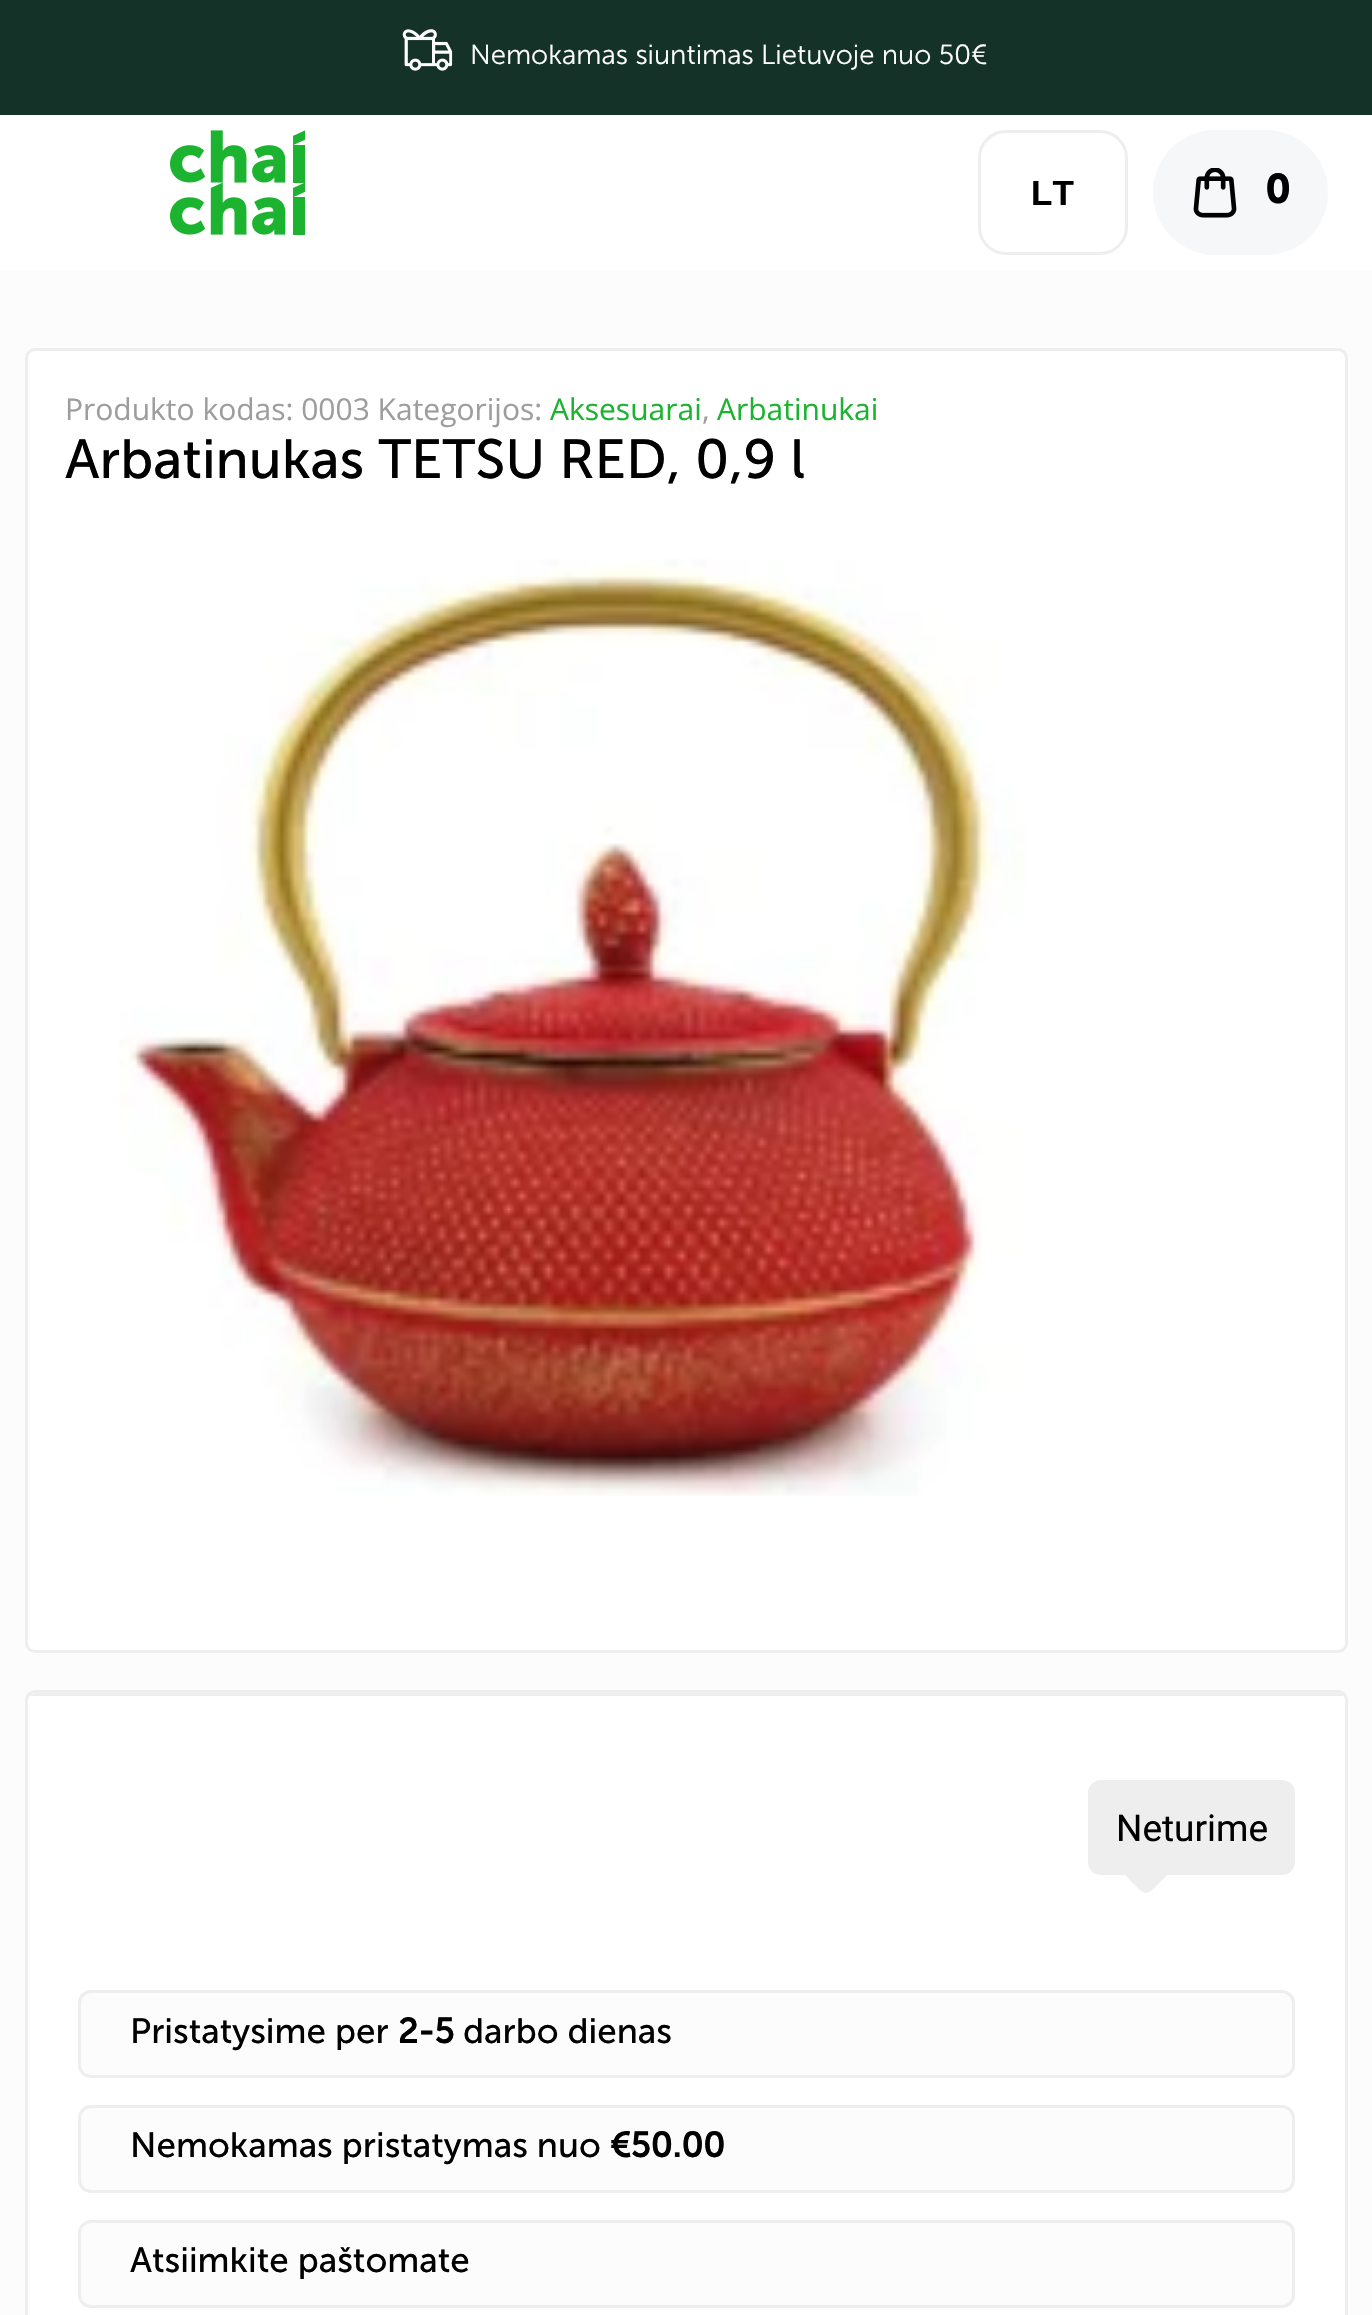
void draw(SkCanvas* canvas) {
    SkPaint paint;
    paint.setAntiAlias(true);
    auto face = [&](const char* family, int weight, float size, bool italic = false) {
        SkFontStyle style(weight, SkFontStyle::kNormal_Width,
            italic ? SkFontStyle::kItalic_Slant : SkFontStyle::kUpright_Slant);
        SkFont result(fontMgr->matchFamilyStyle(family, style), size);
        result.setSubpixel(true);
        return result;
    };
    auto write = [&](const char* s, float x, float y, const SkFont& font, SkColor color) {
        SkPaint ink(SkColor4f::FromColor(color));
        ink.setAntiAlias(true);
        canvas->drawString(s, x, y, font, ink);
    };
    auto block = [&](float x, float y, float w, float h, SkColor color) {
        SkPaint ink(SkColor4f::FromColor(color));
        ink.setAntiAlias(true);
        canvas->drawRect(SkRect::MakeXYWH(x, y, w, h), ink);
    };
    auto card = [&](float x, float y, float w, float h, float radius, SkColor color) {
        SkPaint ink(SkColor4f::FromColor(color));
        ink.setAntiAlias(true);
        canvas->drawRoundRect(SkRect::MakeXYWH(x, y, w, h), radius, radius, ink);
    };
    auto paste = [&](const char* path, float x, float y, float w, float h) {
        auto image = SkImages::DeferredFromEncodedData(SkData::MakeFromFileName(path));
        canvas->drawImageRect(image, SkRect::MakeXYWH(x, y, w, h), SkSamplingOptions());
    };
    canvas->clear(SkColorSetRGB(252, 252, 252));
    block(0, 0, 1372, 115, SkColorSetRGB(21, 50, 41));
    paste("pic1.png", 402, 29, 51, 42);
    auto kFont1 = face("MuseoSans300", 400, 27.5f);
    write("Nemokamas siuntimas Lietuvoje nuo 50€", 470, 64, kFont1, SK_ColorWHITE);
    block(0, 115, 1372, 155, SK_ColorWHITE);
    paste("pic2.png", 170, 130, 135, 105);
    paint.setStyle(SkPaint::kStroke_Style);
    paint.setStrokeWidth(3);
    paint.setColor(SkColorSetRGB(238, 238, 238));
    canvas->drawRoundRect(SkRect::MakeXYWH(979.5f, 131.5f, 147, 122), 26.5f, 26.5f, paint);
    auto kFont2 = face("Liberation Sans", 700, 35);
    write("LT", 1031, 205, kFont2, SK_ColorBLACK);
    card(1153, 130, 175, 125, 62.5f, SkColorSetRGB(246, 247, 248));
    paste("pic3.png", 1193, 168, 44, 50);
    auto kFont3 = face("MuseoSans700", 700, 40);
    write("0", 1265, 203, kFont3, SK_ColorBLACK);
    paint.setStyle(SkPaint::kFill_Style);
    paint.setColor(SK_ColorWHITE);
    canvas->drawRoundRect(SkRect::MakeXYWH(26.5f, 349.5f, 1320, 1302), 8.5f, 8.5f, paint);
    paint.setStyle(SkPaint::kStroke_Style);
    paint.setColor(SkColorSetRGB(238, 238, 238));
    canvas->drawRoundRect(SkRect::MakeXYWH(26.5f, 349.5f, 1320, 1302), 8.5f, 8.5f, paint);
    auto kFont4 = face("Open Sans", 400, 30);
    write("Produkto kodas: 0003 Kategorijos:", 65, 420, kFont4, SkColorSetRGB(157, 157, 157));
    write("Aksesuarai", 550, 420, kFont4, SkColorSetRGB(27, 179, 47));
    write(",", 702, 420, kFont4, SkColorSetRGB(157, 157, 157));
    write("Arbatinukai", 717, 420, kFont4, SkColorSetRGB(27, 179, 47));
    auto kFont5 = face("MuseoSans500", 400, 55);
    write("Arbatinukas TETSU RED, 0,9 l", 65, 478, kFont5, SK_ColorBLACK);
    paste("pic4.png", 119, 559, 907, 937);
    paint.setStyle(SkPaint::kFill_Style);
    paint.setColor(SK_ColorWHITE);
    canvas->drawRoundRect(SkRect::MakeXYWH(26.5f, 1691.5f, 1320, 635), 8.5f, 8.5f, paint);
    paint.setStyle(SkPaint::kStroke_Style);
    paint.setColor(SkColorSetRGB(238, 238, 238));
    canvas->drawRoundRect(SkRect::MakeXYWH(26.5f, 1691.5f, 1320, 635), 8.5f, 8.5f, paint);
    canvas->save();
    canvas->clipPath(SkPathBuilder().moveTo(36, 1693).lineTo(1337, 1693).cubicTo(1341.5f, 1693, 1345, 1696.5f, 1345, 1701).lineTo(1345, 3075).cubicTo(1345, 3079.5f, 1341.5f, 3083, 1337, 3083).lineTo(36, 3083).cubicTo(31.5f, 3083, 28, 3079.5f, 28, 3075).lineTo(28, 1701).cubicTo(28, 1696.5f, 31.5f, 1693, 36, 1693).close().detach(), true);
    block(28, 1693, 1317, 3, SkColorSetRGB(238, 238, 238));
    canvas->restore();
    card(1088, 1780, 207, 95, 13, SkColorSetRGB(238, 238, 238));
    auto kFont6 = face("Roboto", 400, 37);
    write("Neturime", 1116, 1841, kFont6, SK_ColorBLACK);
    paint.setStyle(SkPaint::kFill_Style);
    canvas->drawPath(SkPathBuilder().moveTo(1146, 1846).lineTo(1171, 1871).cubicTo(1142, 1900, 1150, 1900, 1121, 1871).close().detach(), paint);
    paint.setColor(SkColorSetRGB(252, 252, 252));
    canvas->drawRoundRect(SkRect::MakeXYWH(79.5f, 1991.5f, 1214, 85), 11.5f, 11.5f, paint);
    paint.setStyle(SkPaint::kStroke_Style);
    paint.setColor(SkColorSetRGB(238, 238, 238));
    canvas->drawRoundRect(SkRect::MakeXYWH(79.5f, 1991.5f, 1214, 85), 11.5f, 11.5f, paint);
    auto kFont7 = face("MuseoSans500", 400, 35);
    write("Pristatysime per", 130, 2043, kFont7, SK_ColorBLACK);
    auto kFont8 = face("MuseoSans500", 700, 35);
    write("2-5", 398, 2043, kFont8, SK_ColorBLACK);
    write("darbo dienas", 463, 2043, kFont7, SK_ColorBLACK);
    paint.setStyle(SkPaint::kFill_Style);
    paint.setColor(SkColorSetRGB(252, 252, 252));
    canvas->drawRoundRect(SkRect::MakeXYWH(79.5f, 2106.5f, 1214, 85), 11.5f, 11.5f, paint);
    paint.setStyle(SkPaint::kStroke_Style);
    paint.setColor(SkColorSetRGB(238, 238, 238));
    canvas->drawRoundRect(SkRect::MakeXYWH(79.5f, 2106.5f, 1214, 85), 11.5f, 11.5f, paint);
    write("Nemokamas pristatymas nuo", 130, 2157, kFont7, SK_ColorBLACK);
    write("€50.00", 610, 2157, kFont8, SK_ColorBLACK);
    paint.setStyle(SkPaint::kFill_Style);
    paint.setColor(SkColorSetRGB(252, 252, 252));
    canvas->drawRoundRect(SkRect::MakeXYWH(79.5f, 2221.5f, 1214, 85), 11.5f, 11.5f, paint);
    paint.setStyle(SkPaint::kStroke_Style);
    paint.setColor(SkColorSetRGB(238, 238, 238));
    canvas->drawRoundRect(SkRect::MakeXYWH(79.5f, 2221.5f, 1214, 85), 11.5f, 11.5f, paint);
    write("Atsiimkite paštomate", 130, 2272, kFont7, SK_ColorBLACK);
}
